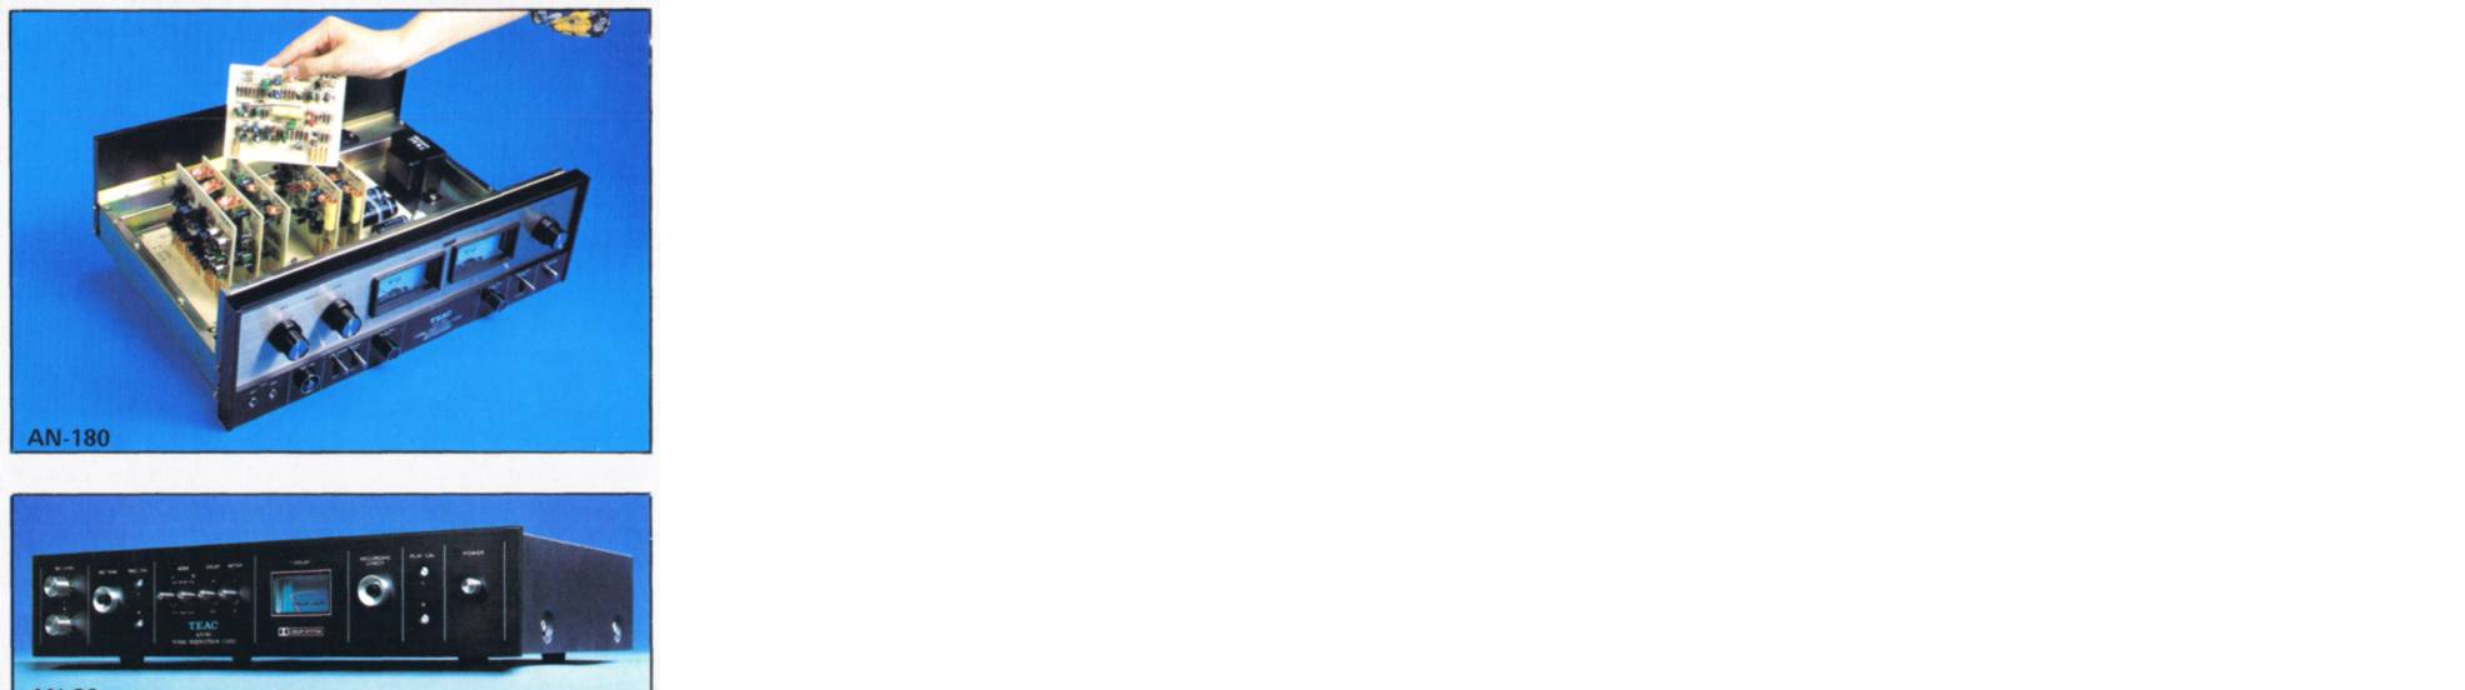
void draw(SkCanvas* canvas) {
    SkPaint paint;
    paint.setAntiAlias(true);
    auto paste = [&](const char* path, float x, float y, float w, float h) {
        auto image = SkImages::DeferredFromEncodedData(SkData::MakeFromFileName(path));
        canvas->drawImageRect(image, SkRect::MakeXYWH(x, y, w, h), SkSamplingOptions());
    };
    canvas->clear(SK_ColorWHITE);
    paste("pic1.png", 0, 0, 660, 690);
}
